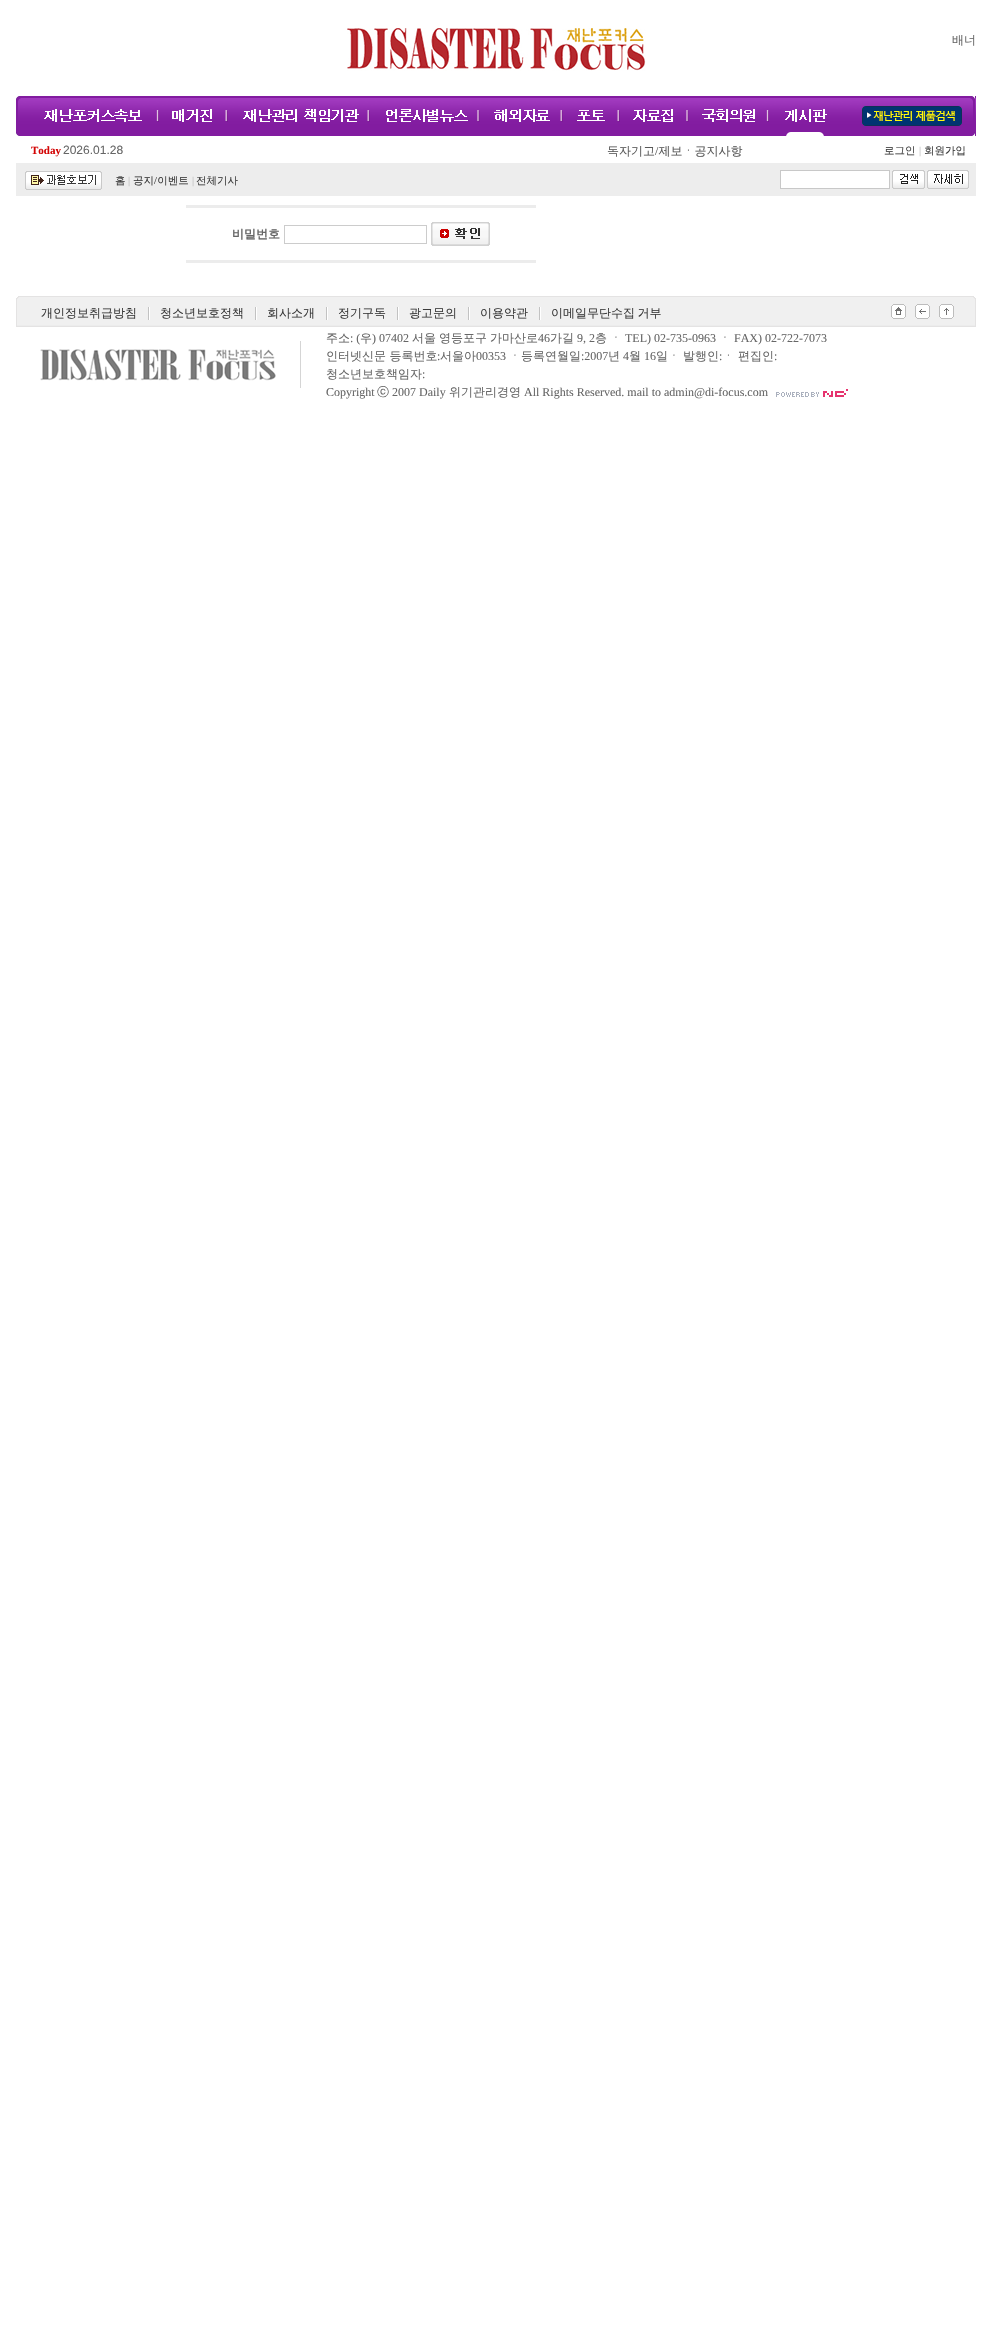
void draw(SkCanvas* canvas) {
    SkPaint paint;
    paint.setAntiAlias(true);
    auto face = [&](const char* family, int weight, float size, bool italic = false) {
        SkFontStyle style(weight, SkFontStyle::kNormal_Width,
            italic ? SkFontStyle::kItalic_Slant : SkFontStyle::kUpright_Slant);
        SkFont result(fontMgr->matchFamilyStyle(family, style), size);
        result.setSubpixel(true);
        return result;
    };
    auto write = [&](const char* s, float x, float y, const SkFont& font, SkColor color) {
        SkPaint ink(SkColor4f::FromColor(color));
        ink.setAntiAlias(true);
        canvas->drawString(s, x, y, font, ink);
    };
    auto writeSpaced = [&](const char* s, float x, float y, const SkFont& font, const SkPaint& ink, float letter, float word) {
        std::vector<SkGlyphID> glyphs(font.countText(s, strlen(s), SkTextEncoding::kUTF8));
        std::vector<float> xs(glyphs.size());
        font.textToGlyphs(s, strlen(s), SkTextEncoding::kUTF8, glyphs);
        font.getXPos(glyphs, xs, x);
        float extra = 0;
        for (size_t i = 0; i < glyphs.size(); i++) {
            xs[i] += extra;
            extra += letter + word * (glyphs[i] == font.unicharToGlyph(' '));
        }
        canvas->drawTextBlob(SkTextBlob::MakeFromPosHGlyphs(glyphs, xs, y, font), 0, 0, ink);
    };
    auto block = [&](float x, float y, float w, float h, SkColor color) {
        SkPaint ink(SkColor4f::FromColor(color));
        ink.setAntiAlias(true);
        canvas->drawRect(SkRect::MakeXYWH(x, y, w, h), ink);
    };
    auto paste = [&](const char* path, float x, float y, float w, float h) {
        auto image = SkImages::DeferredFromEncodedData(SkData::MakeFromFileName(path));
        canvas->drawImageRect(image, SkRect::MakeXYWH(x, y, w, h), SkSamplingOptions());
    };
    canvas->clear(SK_ColorWHITE);
    paste("pic1.png", 347, 28, 299, 43);
    auto kFont1 = face("WenQuanYi Zen Hei", 500, 12);
    write("배너", 952, 44, kFont1, SkColorSetRGB(102, 102, 102));
    paste("pic2.png", 21, 96, 955, 40);
    paste("pic3.png", 16, 96, 5, 40);
    paste("pic4.png", 44, 109, 115, 13);
    paste("pic5.png", 172, 109, 56, 13);
    paste("pic6.png", 243, 109, 127, 13);
    paste("pic7.png", 386, 109, 94, 13);
    paste("pic8.png", 494, 109, 69, 13);
    paste("pic9.png", 577, 110, 43, 12);
    paste("pic10.png", 633, 109, 56, 13);
    paste("pic11.png", 702, 109, 67, 13);
    paste("pic12.png", 785, 109, 42, 27);
    paste("pic13.png", 862, 106, 100, 20);
    paste("pic14.png", 970, 96, 5, 40);
    auto kFont2 = face("Liberation Serif", 700, 11);
    write("Today", 31, 154, kFont2, SkColorSetRGB(211, 4, 4));
    auto kFont3 = face("Liberation Sans", 400, 12);
    write("2026.01.28", 63, 154, kFont3, SkColorSetRGB(102, 102, 102));
    write("독자기고 제보ㆍ공지사항", 607, 155, kFont1, SkColorSetRGB(88, 88, 88));
    auto kFont4 = face("Liberation Serif", 400, 12);
    write("/", 655, 155, kFont4, SkColorSetRGB(88, 88, 88));
    auto kFont5 = face("WenQuanYi Zen Hei", 500, 10.5f);
    write("로그인", 884, 154, kFont5, SkColorSetRGB(59, 59, 59));
    auto kFont6 = face("Liberation Serif", 400, 10.5f);
    write("|", 919, 154, kFont6, SkColorSetRGB(190, 190, 190));
    write("회원가입", 924, 154, kFont5, SkColorSetRGB(59, 59, 59));
    block(16, 163, 960, 33, SkColorSetRGB(237, 237, 237));
    paste("pic15.png", 25, 171, 77, 19);
    write("홈", 115, 184, kFont5, SkColorSetRGB(59, 59, 59));
    write("|", 128, 184, kFont6, SkColorSetRGB(190, 190, 190));
    write("공지 이벤트", 133, 184, kFont5, SkColorSetRGB(59, 59, 59));
    write("/", 154, 184, kFont6, SkColorSetRGB(59, 59, 59));
    write("|", 192, 184, kFont6, SkColorSetRGB(190, 190, 190));
    write("전체기사", 196, 184, kFont5, SkColorSetRGB(59, 59, 59));
    paint.setColor(SK_ColorWHITE);
    canvas->drawRect(SkRect::MakeXYWH(780.5f, 170.5f, 109, 18), paint);
    paint.setStyle(SkPaint::kStroke_Style);
    paint.setStrokeWidth(1);
    paint.setColor(SkColorSetRGB(200, 200, 200));
    canvas->drawRect(SkRect::MakeXYWH(780.5f, 170.5f, 109, 18), paint);
    paste("pic16.png", 892, 170, 33, 19);
    paste("pic17.png", 927, 170, 42, 19);
    block(186, 205, 350, 3, SkColorSetRGB(236, 236, 236));
    auto kFont7 = face("WenQuanYi Zen Hei", 700, 12);
    write("비밀번호", 232, 238, kFont7, SkColorSetRGB(102, 102, 102));
    paint.setColor(SkColorSetRGB(204, 204, 204));
    canvas->drawRect(SkRect::MakeXYWH(284.5f, 225.5f, 142, 18), paint);
    paste("pic18.png", 431, 222, 59, 24);
    block(186, 260, 350, 3, SkColorSetRGB(236, 236, 236));
    paste("pic19.png", 16, 296, 960, 31);
    paste("pic20.png", 16, 296, 3, 30);
    write("개인정보취급방침", 41, 317, kFont1, SkColorSetRGB(59, 59, 59));
    paste("pic21.png", 148, 307, 2, 13);
    write("청소년보호정책", 160, 317, kFont1, SkColorSetRGB(59, 59, 59));
    paste("pic21.png", 255, 307, 2, 13);
    write("회사소개", 267, 317, kFont1, SkColorSetRGB(59, 59, 59));
    paste("pic21.png", 326, 307, 2, 13);
    write("정기구독", 338, 317, kFont1, SkColorSetRGB(59, 59, 59));
    paste("pic21.png", 397, 307, 2, 13);
    write("광고문의", 409, 317, kFont1, SkColorSetRGB(59, 59, 59));
    paste("pic21.png", 468, 307, 2, 13);
    write("이용약관", 480, 317, kFont1, SkColorSetRGB(59, 59, 59));
    paste("pic21.png", 539, 307, 2, 13);
    paint.setStyle(SkPaint::kFill_Style);
    paint.setColor(SkColorSetRGB(59, 59, 59));
    writeSpaced("이메일무단수집 거부", 551, 317, kFont1, paint, 0, -1);
    paste("pic22.png", 891, 304, 15, 15);
    paste("pic23.png", 915, 304, 15, 15);
    paste("pic24.png", 939, 304, 15, 15);
    paste("pic25.png", 973, 296, 3, 30);
    paste("pic26.png", 40, 349, 236, 32);
    block(300, 341, 1, 47, SkColorSetRGB(213, 213, 213));
    write("주소", 326, 342, kFont1, SkColorSetRGB(102, 102, 102));
    write(": (", 350, 342, kFont4, SkColorSetRGB(102, 102, 102));
    write("우", 360, 342, kFont1, SkColorSetRGB(102, 102, 102));
    write(") 07402", 372, 342, kFont4, SkColorSetRGB(102, 102, 102));
    write("서울", 412, 342, kFont1, SkColorSetRGB(102, 102, 102));
    write("영등포구", 439, 342, kFont1, SkColorSetRGB(102, 102, 102));
    write("가마산로", 490, 342, kFont1, SkColorSetRGB(102, 102, 102));
    write("46", 538, 342, kFont4, SkColorSetRGB(102, 102, 102));
    write("가길", 550, 342, kFont1, SkColorSetRGB(102, 102, 102));
    write("9, 2", 577, 342, kFont4, SkColorSetRGB(102, 102, 102));
    write("층", 595, 342, kFont1, SkColorSetRGB(102, 102, 102));
    write("ㆍ", 610, 342, kFont1, SkColorSetRGB(102, 102, 102));
    write("TEL) 02-735-0963", 625, 342, kFont4, SkColorSetRGB(102, 102, 102));
    write("ㆍ", 719, 342, kFont1, SkColorSetRGB(102, 102, 102));
    write("FAX) 02-722-7073", 734, 342, kFont4, SkColorSetRGB(102, 102, 102));
    write("인터넷신문 등록번호", 326, 360, kFont1, SkColorSetRGB(102, 102, 102));
    write(":", 437, 360, kFont4, SkColorSetRGB(102, 102, 102));
    write("서울아", 440, 360, kFont1, SkColorSetRGB(102, 102, 102));
    write("00353", 476, 360, kFont4, SkColorSetRGB(102, 102, 102));
    write("ㆍ등록연월일", 509, 360, kFont1, SkColorSetRGB(102, 102, 102));
    write(":2007", 581, 360, kFont4, SkColorSetRGB(102, 102, 102));
    write("년", 608, 360, kFont1, SkColorSetRGB(102, 102, 102));
    write("4", 623, 360, kFont4, SkColorSetRGB(102, 102, 102));
    write("월", 629, 360, kFont1, SkColorSetRGB(102, 102, 102));
    write("16", 644, 360, kFont4, SkColorSetRGB(102, 102, 102));
    write("일ㆍ", 656, 360, kFont1, SkColorSetRGB(102, 102, 102));
    write("발행인 ㆍ", 683, 360, kFont1, SkColorSetRGB(102, 102, 102));
    write("편집인", 738, 360, kFont1, SkColorSetRGB(102, 102, 102));
    write(":", 719, 360, kFont4, SkColorSetRGB(102, 102, 102));
    write(":", 774, 360, kFont4, SkColorSetRGB(102, 102, 102));
    write("청소년보호책임자", 326, 378, kFont1, SkColorSetRGB(102, 102, 102));
    write(":", 422, 378, kFont4, SkColorSetRGB(102, 102, 102));
    write("Copyright", 326, 396, kFont4, SkColorSetRGB(102, 102, 102));
    write("ⓒ", 377, 396, kFont1, SkColorSetRGB(102, 102, 102));
    write("2007 Daily", 392, 396, kFont4, SkColorSetRGB(102, 102, 102));
    write("위기관리경영", 449, 396, kFont1, SkColorSetRGB(102, 102, 102));
    write("All Rights Reserved. mail to admin@di-focus.com", 524, 396, kFont4, SkColorSetRGB(102, 102, 102));
    paste("pic27.png", 776, 389, 72, 8);
}
